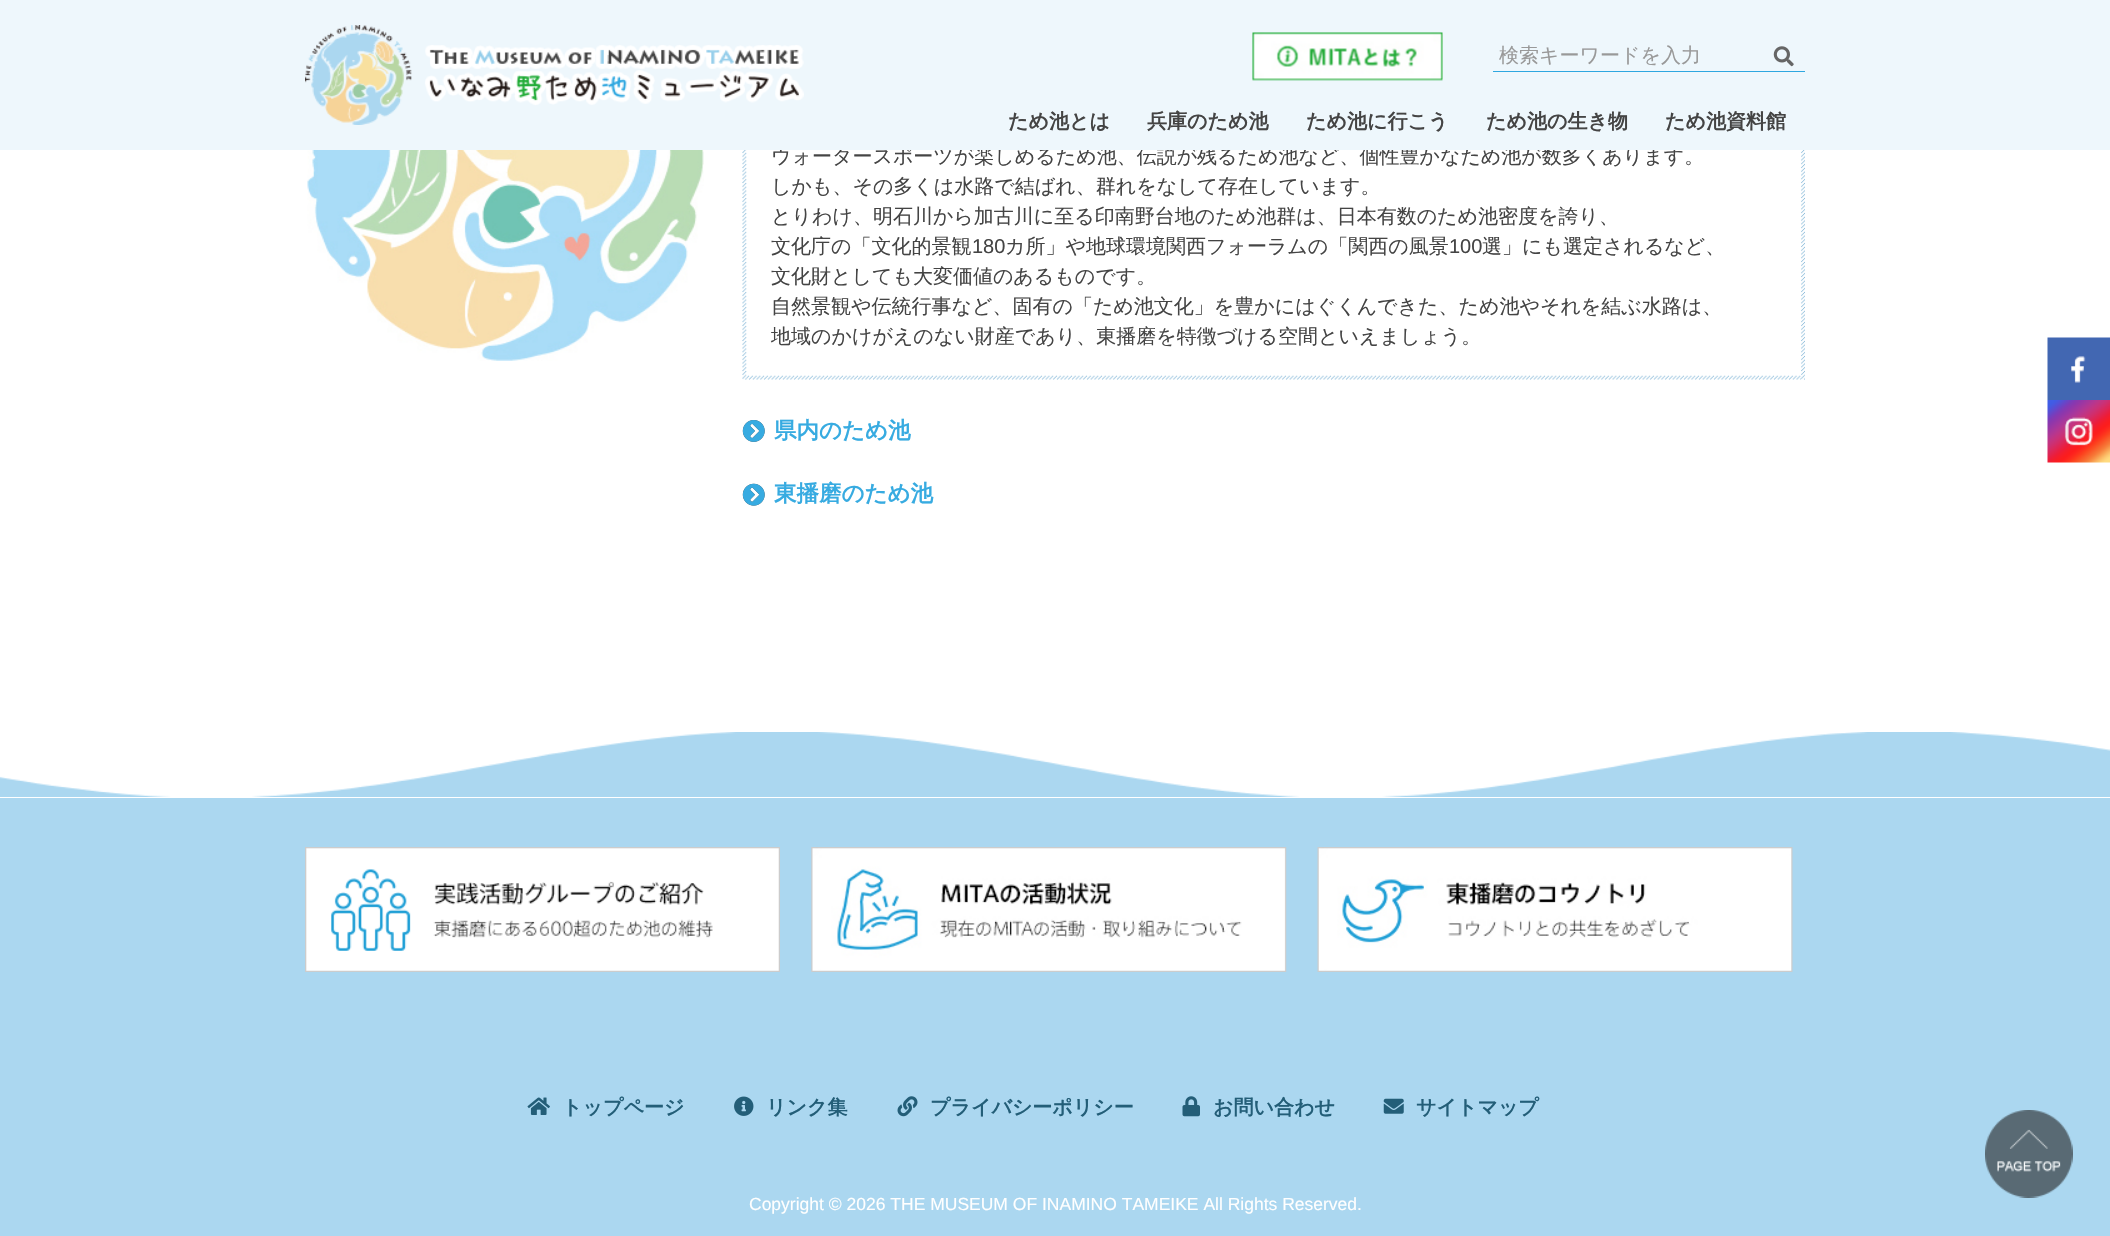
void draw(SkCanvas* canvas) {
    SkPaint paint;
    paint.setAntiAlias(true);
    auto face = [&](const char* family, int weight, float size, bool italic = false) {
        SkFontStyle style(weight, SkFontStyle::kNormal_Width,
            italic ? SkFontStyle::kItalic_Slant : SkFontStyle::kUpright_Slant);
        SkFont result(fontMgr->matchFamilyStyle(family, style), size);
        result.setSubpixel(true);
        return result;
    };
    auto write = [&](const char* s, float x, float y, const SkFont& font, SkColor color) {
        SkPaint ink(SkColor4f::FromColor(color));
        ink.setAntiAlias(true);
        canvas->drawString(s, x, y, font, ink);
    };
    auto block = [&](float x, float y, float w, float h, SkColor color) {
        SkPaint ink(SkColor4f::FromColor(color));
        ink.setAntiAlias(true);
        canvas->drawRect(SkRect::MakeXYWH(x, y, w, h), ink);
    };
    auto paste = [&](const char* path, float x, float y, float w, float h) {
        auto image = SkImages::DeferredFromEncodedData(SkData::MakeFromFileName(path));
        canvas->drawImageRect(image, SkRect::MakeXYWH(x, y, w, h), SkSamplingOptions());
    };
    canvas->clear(SK_ColorWHITE);
    paste("pic5.png", 742, 150, 1063, 230);
    auto kFont1 = face("WenQuanYi Zen Hei", 500, 20);
    write("ウォータースポーツが楽しめるため池、伝説が残るため池など、個性豊かなため池が数多くあります。", 771, 163, kFont1, SkColorSetRGB(68, 68, 68));
    block(0, 0, 2110, 150, SkColorSetRGB(238, 247, 252));
    paste("pic1.png", 305, 25, 499, 100);
    block(1253, 33, 190, 47, SK_ColorWHITE);
    paste("pic2.png", 1252, 32, 191, 49);
    block(1493, 71, 312, 1, SkColorSetRGB(46, 167, 224));
    write("検索キーワードを入力", 1499, 62, kFont1, SkColorSetRGB(153, 153, 153));
    paste("pic3.png", 1773, 46, 21, 21);
    auto kFont2 = face("WenQuanYi Zen Hei", 700, 20);
    write("ため池とは", 1008, 128, kFont2, SkColorSetRGB(68, 68, 68));
    write("兵庫のため池", 1147, 128, kFont2, SkColorSetRGB(68, 68, 68));
    write("ため池に行こう", 1306, 128, kFont2, SkColorSetRGB(68, 68, 68));
    write("ため池の生き物", 1486, 128, kFont2, SkColorSetRGB(68, 68, 68));
    write("ため池資料館", 1665, 128, kFont2, SkColorSetRGB(68, 68, 68));
    paste("pic4.png", 307, 150, 397, 211);
    write("しかも、その多くは水路で結ばれ、群れをなして存在しています。", 771, 193, kFont1, SkColorSetRGB(68, 68, 68));
    write("とりわけ、明石川から加古川に至る印南野台地のため池群は、日本有数のため池密度を誇り、", 771, 223, kFont1, SkColorSetRGB(68, 68, 68));
    write("文化庁の「文化的景観", 771, 253, kFont1, SkColorSetRGB(68, 68, 68));
    auto kFont3 = face("Liberation Sans", 400, 20);
    write("180", 972, 253, kFont3, SkColorSetRGB(68, 68, 68));
    write("カ所」や地球環境関西フォーラムの「関西の風景", 1005, 253, kFont1, SkColorSetRGB(68, 68, 68));
    write("100", 1449, 253, kFont3, SkColorSetRGB(68, 68, 68));
    write("選」にも選定されるなど、", 1482, 253, kFont1, SkColorSetRGB(68, 68, 68));
    write("文化財としても大変価値のあるものです。", 771, 283, kFont1, SkColorSetRGB(68, 68, 68));
    write("自然景観や伝統行事など、固有の「ため池文化」を豊かにはぐくんできた、ため池やそれを結ぶ水路は、", 771, 313, kFont1, SkColorSetRGB(68, 68, 68));
    write("地域のかけがえのない財産であり、東播磨を特徴づける空間といえましょう。", 771, 343, kFont1, SkColorSetRGB(68, 68, 68));
    paste("pic6.png", 742, 420, 23, 22);
    paste("pic7.png", 742, 420, 23, 22);
    auto kFont4 = face("WenQuanYi Zen Hei", 700, 22.5f);
    write("県内のため池", 774, 438, kFont4, SkColorSetRGB(55, 171, 225));
    paste("pic8.png", 742, 483, 23, 23);
    paste("pic9.png", 742, 483, 23, 23);
    write("東播磨のため池", 774, 501, kFont4, SkColorSetRGB(55, 171, 225));
    paste("pic10.png", 2047, 337, 63, 63);
    paste("pic11.png", 2047, 400, 63, 63);
    paste("pic12.png", 0, 732, 2110, 65);
    block(0, 798, 2110, 438, SkColorSetRGB(171, 215, 240));
    paste("pic13.png", 305, 847, 475, 125);
    paste("pic14.png", 811, 847, 476, 125);
    paste("pic15.png", 1317, 847, 476, 125);
    paste("pic16.png", 527, 1097, 23, 18);
    write("トップページ", 562, 1114, kFont2, SkColorSetRGB(35, 94, 120));
    paste("pic17.png", 734, 1096, 20, 20);
    write("リンク集", 766, 1114, kFont2, SkColorSetRGB(35, 94, 120));
    paste("pic18.png", 897, 1096, 21, 21);
    write("プライバシーポリシー", 930, 1114, kFont2, SkColorSetRGB(35, 94, 120));
    paste("pic19.png", 1182, 1096, 18, 21);
    write("お問い合わせ", 1213, 1114, kFont2, SkColorSetRGB(35, 94, 120));
    paste("pic20.png", 1383, 1098, 21, 16);
    write("サイトマップ", 1416, 1114, kFont2, SkColorSetRGB(35, 94, 120));
    auto kFont5 = face("Liberation Sans", 400, 17.5f);
    write("Copyright © 2026 THE MUSEUM OF INAMINO TAMEIKE All Rights Reserved.", 749, 1210, kFont5, SK_ColorWHITE);
    paste("pic21.png", 1985, 1110, 88, 88);
}
